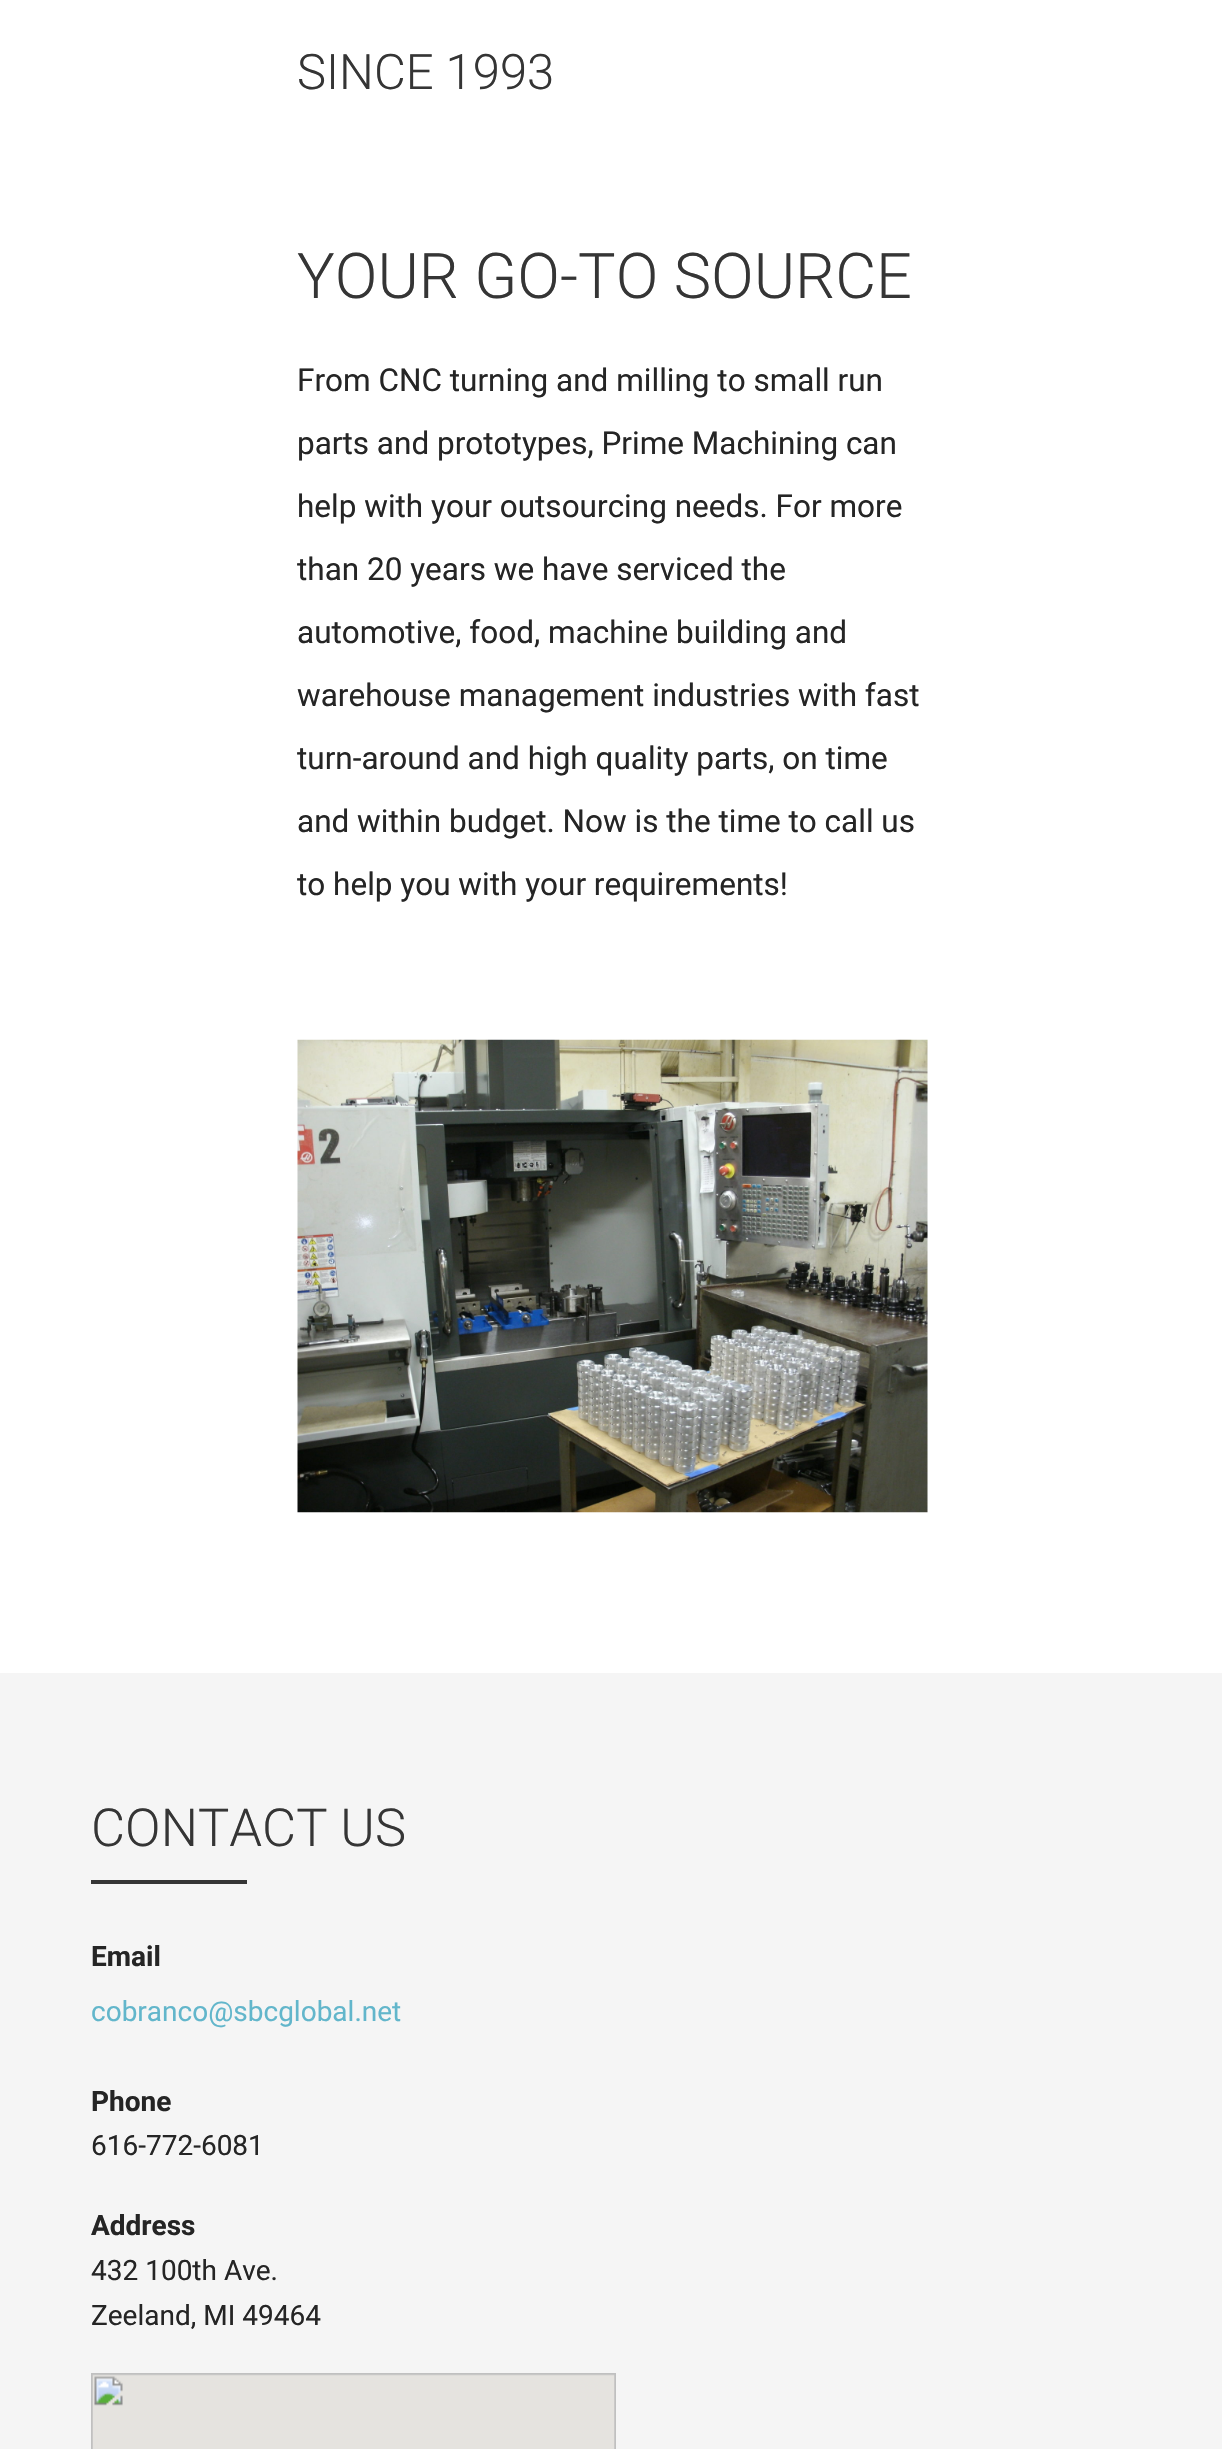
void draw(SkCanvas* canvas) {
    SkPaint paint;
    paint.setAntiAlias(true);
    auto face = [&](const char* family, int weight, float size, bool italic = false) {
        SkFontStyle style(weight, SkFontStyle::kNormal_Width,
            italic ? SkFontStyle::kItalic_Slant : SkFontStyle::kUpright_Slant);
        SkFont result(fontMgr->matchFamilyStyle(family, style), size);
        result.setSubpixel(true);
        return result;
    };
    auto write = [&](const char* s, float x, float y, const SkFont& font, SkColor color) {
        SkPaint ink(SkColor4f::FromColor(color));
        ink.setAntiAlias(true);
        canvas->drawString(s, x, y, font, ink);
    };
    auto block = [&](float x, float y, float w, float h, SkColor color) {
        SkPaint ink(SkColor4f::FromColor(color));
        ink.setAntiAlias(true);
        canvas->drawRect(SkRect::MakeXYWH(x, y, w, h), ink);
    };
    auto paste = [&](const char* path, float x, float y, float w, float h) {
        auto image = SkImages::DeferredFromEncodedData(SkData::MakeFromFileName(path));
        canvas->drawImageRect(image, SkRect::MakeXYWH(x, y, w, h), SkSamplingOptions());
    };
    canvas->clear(SK_ColorWHITE);
    auto kFont1 = face("Roboto", 300, 49);
    write("SINCE 1993", 297, 89, kFont1, SkColorSetRGB(53, 53, 53));
    auto kFont2 = face("Roboto", 300, 63);
    write("YOUR GO-TO SOURCE", 297, 298, kFont2, SkColorSetRGB(53, 53, 53));
    auto kFont3 = face("Roboto", 400, 31.5f);
    write("From CNC turning and milling to small run", 297, 391, kFont3, SkColorSetRGB(37, 37, 37));
    write("parts and prototypes, Prime Machining can", 297, 454, kFont3, SkColorSetRGB(37, 37, 37));
    write("help with your outsourcing needs. For more", 297, 517, kFont3, SkColorSetRGB(37, 37, 37));
    write("than 20 years we have serviced the", 297, 580, kFont3, SkColorSetRGB(37, 37, 37));
    write("automotive, food, machine building and", 297, 643, kFont3, SkColorSetRGB(37, 37, 37));
    write("warehouse management industries with fast", 297, 706, kFont3, SkColorSetRGB(37, 37, 37));
    write("turn-around and high quality parts, on time", 297, 769, kFont3, SkColorSetRGB(37, 37, 37));
    write("and within budget. Now is the time to call us", 297, 832, kFont3, SkColorSetRGB(37, 37, 37));
    write("to help you with your requirements!", 297, 895, kFont3, SkColorSetRGB(37, 37, 37));
    paste("pic1.png", 297, 1039, 631, 474);
    block(0, 1673, 1222, 776, SkColorSetRGB(245, 245, 245));
    auto kFont4 = face("Roboto", 300, 52.5f);
    write("CONTACT US", 91, 1846, kFont4, SkColorSetRGB(53, 53, 53));
    block(91, 1880, 156, 4, SkColorSetRGB(53, 53, 53));
    auto kFont5 = face("Roboto", 700, 28);
    write("Email", 91, 1966, kFont5, SkColorSetRGB(37, 37, 37));
    auto kFont6 = face("Roboto", 400, 28);
    write("cobranco@sbcglobal.net", 91, 2021, kFont6, SkColorSetRGB(98, 182, 203));
    write("Phone", 91, 2111, kFont5, SkColorSetRGB(37, 37, 37));
    write("616-772-6081", 91, 2155, kFont6, SkColorSetRGB(37, 37, 37));
    write("Address", 91, 2235, kFont5, SkColorSetRGB(37, 37, 37));
    write("432 100th Ave.", 91, 2280, kFont6, SkColorSetRGB(37, 37, 37));
    write("Zeeland, MI 49464", 91, 2325, kFont6, SkColorSetRGB(37, 37, 37));
    paste("pic2.png", 91, 2373, 525, 76);
}
